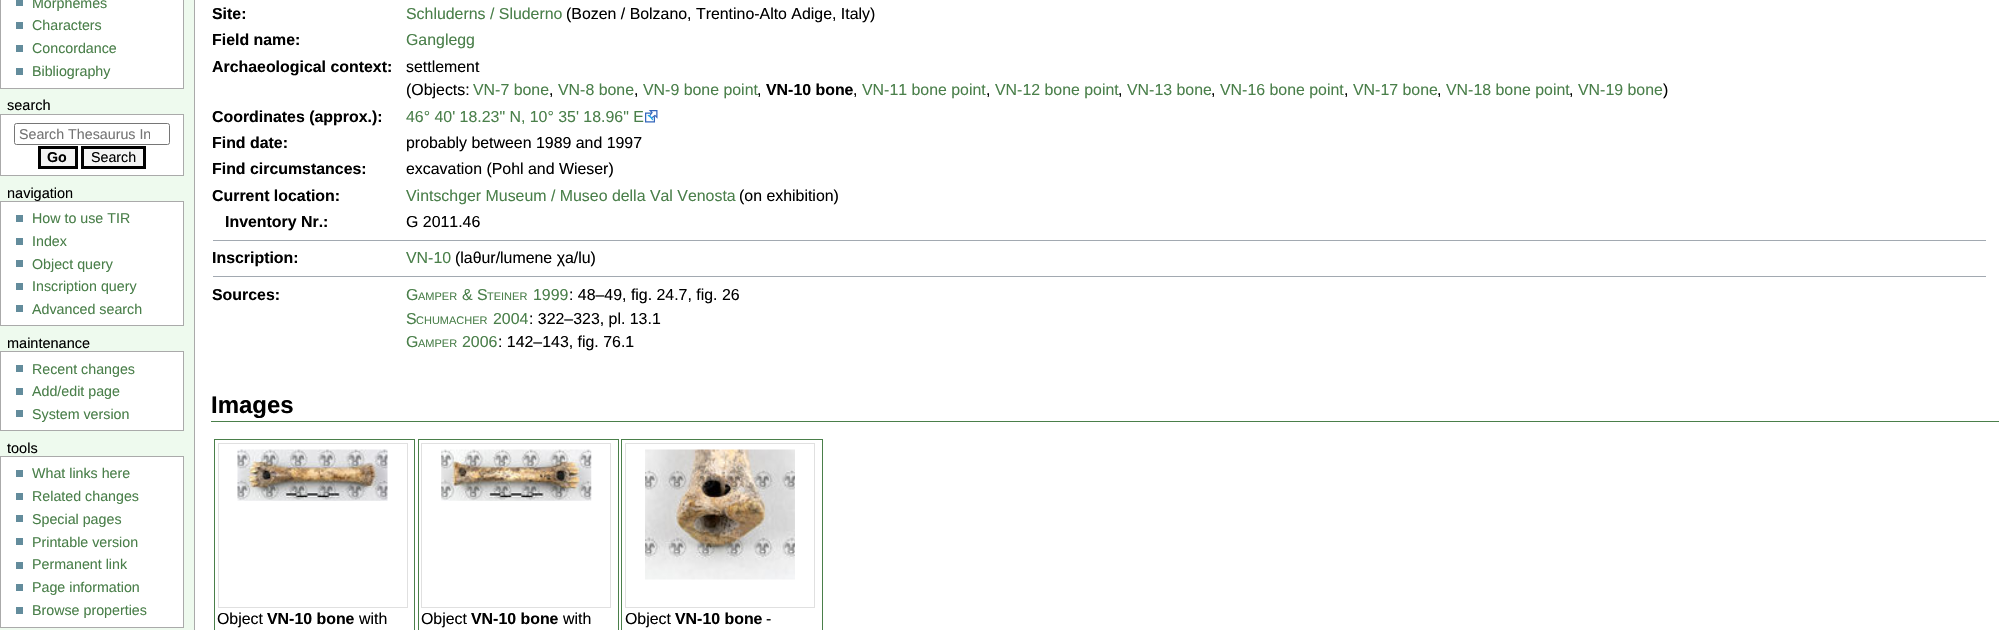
void draw(SkCanvas* canvas) {
    SkPaint paint;
    paint.setAntiAlias(true);
    auto face = [&](const char* family, int weight, float size, bool italic = false) {
        SkFontStyle style(weight, SkFontStyle::kNormal_Width,
            italic ? SkFontStyle::kItalic_Slant : SkFontStyle::kUpright_Slant);
        SkFont result(fontMgr->matchFamilyStyle(family, style), size);
        result.setSubpixel(true);
        return result;
    };
    auto write = [&](const char* s, float x, float y, const SkFont& font, SkColor color) {
        SkPaint ink(SkColor4f::FromColor(color));
        ink.setAntiAlias(true);
        canvas->drawString(s, x, y, font, ink);
    };
    auto block = [&](float x, float y, float w, float h, SkColor color) {
        SkPaint ink(SkColor4f::FromColor(color));
        ink.setAntiAlias(true);
        canvas->drawRect(SkRect::MakeXYWH(x, y, w, h), ink);
    };
    auto paste = [&](const char* path, float x, float y, float w, float h) {
        auto image = SkImages::DeferredFromEncodedData(SkData::MakeFromFileName(path));
        canvas->drawImageRect(image, SkRect::MakeXYWH(x, y, w, h), SkSamplingOptions());
    };
    canvas->clear(SkColorSetRGB(238, 250, 238));
    paint.setColor(SK_ColorWHITE);
    canvas->drawRect(SkRect::MakeXYWH(0.5f, -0.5f, 183, 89), paint);
    paint.setStyle(SkPaint::kStroke_Style);
    paint.setStrokeWidth(1);
    paint.setColor(SkColorSetRGB(170, 170, 170));
    canvas->drawRect(SkRect::MakeXYWH(0.5f, -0.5f, 183, 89), paint);
    block(16, 0, 7, 6, SkColorSetRGB(99, 140, 156));
    auto kFont1 = face("Liberation Sans", 400, 14.25f);
    write("Morphemes", 32, 8, kFont1, SkColorSetRGB(74, 127, 74));
    block(16, 22, 7, 7, SkColorSetRGB(99, 140, 156));
    write("Characters", 32, 30, kFont1, SkColorSetRGB(74, 127, 74));
    block(16, 45, 7, 7, SkColorSetRGB(99, 140, 156));
    write("Concordance", 32, 53, kFont1, SkColorSetRGB(74, 127, 74));
    block(16, 68, 7, 7, SkColorSetRGB(99, 140, 156));
    write("Bibliography", 32, 76, kFont1, SkColorSetRGB(74, 127, 74));
    auto kFont2 = face("Liberation Sans", 400, 14.5f);
    write("search", 7, 110, kFont2, SK_ColorBLACK);
    paint.setStyle(SkPaint::kFill_Style);
    paint.setColor(SK_ColorWHITE);
    canvas->drawRect(SkRect::MakeXYWH(0.5f, 114.5f, 183, 61), paint);
    paint.setStyle(SkPaint::kStroke_Style);
    paint.setColor(SkColorSetRGB(170, 170, 170));
    canvas->drawRect(SkRect::MakeXYWH(0.5f, 114.5f, 183, 61), paint);
    paint.setColor(SkColorSetRGB(118, 118, 118));
    canvas->drawRoundRect(SkRect::MakeXYWH(14.5f, 123.5f, 155, 21), 2, 2, paint);
    canvas->save();
    canvas->clipRect(SkRect::MakeXYWH(19, 126, 131, 15));
    write("Search Thesaurus In", 19, 139, kFont1, SkColorSetRGB(117, 117, 117));
    canvas->restore();
    paint.setStyle(SkPaint::kFill_Style);
    paint.setColor(SkColorSetRGB(244, 244, 244));
    canvas->drawRect(SkRect::MakeXYWH(39.5f, 147.5f, 37, 20), paint);
    paint.setStyle(SkPaint::kStroke_Style);
    paint.setStrokeWidth(3);
    paint.setColor(SK_ColorBLACK);
    canvas->drawRect(SkRect::MakeXYWH(39.5f, 147.5f, 37, 20), paint);
    auto kFont3 = face("Liberation Sans", 700, 14.25f);
    write("Go", 47, 162, kFont3, SK_ColorBLACK);
    paint.setStyle(SkPaint::kFill_Style);
    paint.setColor(SkColorSetRGB(244, 244, 244));
    canvas->drawRect(SkRect::MakeXYWH(82.5f, 147.5f, 62, 20), paint);
    paint.setStyle(SkPaint::kStroke_Style);
    paint.setColor(SK_ColorBLACK);
    canvas->drawRect(SkRect::MakeXYWH(82.5f, 147.5f, 62, 20), paint);
    write("Search", 91, 162, kFont1, SK_ColorBLACK);
    write("navigation", 7, 198, kFont2, SK_ColorBLACK);
    paint.setStyle(SkPaint::kFill_Style);
    paint.setColor(SK_ColorWHITE);
    canvas->drawRect(SkRect::MakeXYWH(0.5f, 201.5f, 183, 124), paint);
    paint.setStyle(SkPaint::kStroke_Style);
    paint.setStrokeWidth(1);
    paint.setColor(SkColorSetRGB(170, 170, 170));
    canvas->drawRect(SkRect::MakeXYWH(0.5f, 201.5f, 183, 124), paint);
    block(16, 215, 7, 7, SkColorSetRGB(99, 140, 156));
    write("How to use TIR", 32, 223, kFont1, SkColorSetRGB(74, 127, 74));
    block(16, 238, 7, 7, SkColorSetRGB(99, 140, 156));
    write("Index", 32, 246, kFont1, SkColorSetRGB(74, 127, 74));
    block(16, 260, 7, 7, SkColorSetRGB(99, 140, 156));
    write("Object query", 32, 269, kFont1, SkColorSetRGB(74, 127, 74));
    block(16, 283, 7, 7, SkColorSetRGB(99, 140, 156));
    write("Inscription query", 32, 291, kFont1, SkColorSetRGB(74, 127, 74));
    block(16, 305, 7, 7, SkColorSetRGB(99, 140, 156));
    write("Advanced search", 32, 314, kFont1, SkColorSetRGB(74, 127, 74));
    write("maintenance", 7, 348, kFont2, SK_ColorBLACK);
    paint.setStyle(SkPaint::kFill_Style);
    paint.setColor(SK_ColorWHITE);
    canvas->drawRect(SkRect::MakeXYWH(0.5f, 351.5f, 183, 79), paint);
    paint.setStyle(SkPaint::kStroke_Style);
    paint.setColor(SkColorSetRGB(170, 170, 170));
    canvas->drawRect(SkRect::MakeXYWH(0.5f, 351.5f, 183, 79), paint);
    block(16, 365, 7, 7, SkColorSetRGB(99, 140, 156));
    write("Recent changes", 32, 374, kFont1, SkColorSetRGB(74, 127, 74));
    block(16, 388, 7, 7, SkColorSetRGB(99, 140, 156));
    write("Add/edit page", 32, 396, kFont1, SkColorSetRGB(74, 127, 74));
    block(16, 410, 7, 7, SkColorSetRGB(99, 140, 156));
    write("System version", 32, 419, kFont1, SkColorSetRGB(74, 127, 74));
    write("tools", 7, 453, kFont2, SK_ColorBLACK);
    paint.setStyle(SkPaint::kFill_Style);
    paint.setColor(SK_ColorWHITE);
    canvas->drawRect(SkRect::MakeXYWH(0.5f, 456.5f, 183, 171), paint);
    paint.setStyle(SkPaint::kStroke_Style);
    paint.setColor(SkColorSetRGB(170, 170, 170));
    canvas->drawRect(SkRect::MakeXYWH(0.5f, 456.5f, 183, 171), paint);
    block(16, 470, 7, 7, SkColorSetRGB(99, 140, 156));
    write("What links here", 32, 478, kFont1, SkColorSetRGB(74, 127, 74));
    block(16, 493, 7, 7, SkColorSetRGB(99, 140, 156));
    write("Related changes", 32, 501, kFont1, SkColorSetRGB(74, 127, 74));
    block(16, 515, 7, 7, SkColorSetRGB(99, 140, 156));
    write("Special pages", 32, 524, kFont1, SkColorSetRGB(74, 127, 74));
    block(16, 538, 7, 7, SkColorSetRGB(99, 140, 156));
    write("Printable version", 32, 547, kFont1, SkColorSetRGB(74, 127, 74));
    block(16, 562, 7, 7, SkColorSetRGB(99, 140, 156));
    write("Permanent link", 32, 569, kFont1, SkColorSetRGB(74, 127, 74));
    block(16, 584, 7, 7, SkColorSetRGB(99, 140, 156));
    write("Page information", 32, 592, kFont1, SkColorSetRGB(74, 127, 74));
    block(16, 607, 7, 7, SkColorSetRGB(99, 140, 156));
    write("Browse properties", 32, 615, kFont1, SkColorSetRGB(74, 127, 74));
    block(195, 0, 1820, 630, SK_ColorWHITE);
    block(194, 0, 1, 630, SkColorSetRGB(170, 170, 170));
    auto kFont4 = face("Liberation Sans", 700, 15.9f);
    write("Site:", 212, 19, kFont4, SK_ColorBLACK);
    auto kFont5 = face("Liberation Sans", 400, 15.9f);
    write("Schluderns / Sluderno", 406, 19, kFont5, SkColorSetRGB(74, 127, 74));
    write("(Bozen / Bolzano, Trentino-Alto Adige, Italy)", 566, 19, kFont5, SK_ColorBLACK);
    write("Field name:", 212, 45, kFont4, SK_ColorBLACK);
    write("Ganglegg", 406, 45, kFont5, SkColorSetRGB(74, 127, 74));
    write("Archaeological context:", 212, 72, kFont4, SK_ColorBLACK);
    write("settlement", 406, 72, kFont5, SK_ColorBLACK);
    write("(Objects:", 406, 95, kFont5, SK_ColorBLACK);
    write("VN-7 bone", 473, 95, kFont5, SkColorSetRGB(74, 127, 74));
    write(",", 549, 95, kFont5, SK_ColorBLACK);
    write("VN-8 bone", 558, 95, kFont5, SkColorSetRGB(74, 127, 74));
    write(",", 634, 95, kFont5, SK_ColorBLACK);
    write("VN-9 bone point", 643, 95, kFont5, SkColorSetRGB(74, 127, 74));
    write(",", 757, 95, kFont5, SK_ColorBLACK);
    write("VN-10 bone", 766, 95, kFont4, SK_ColorBLACK);
    write(",", 853, 95, kFont5, SK_ColorBLACK);
    write("VN-11 bone point", 862, 95, kFont5, SkColorSetRGB(74, 127, 74));
    write(",", 986, 95, kFont5, SK_ColorBLACK);
    write("VN-12 bone point", 995, 95, kFont5, SkColorSetRGB(74, 127, 74));
    write(",", 1118, 95, kFont5, SK_ColorBLACK);
    write("VN-13 bone", 1127, 95, kFont5, SkColorSetRGB(74, 127, 74));
    write(",", 1211, 95, kFont5, SK_ColorBLACK);
    write("VN-16 bone point", 1220, 95, kFont5, SkColorSetRGB(74, 127, 74));
    write(",", 1344, 95, kFont5, SK_ColorBLACK);
    write("VN-17 bone", 1353, 95, kFont5, SkColorSetRGB(74, 127, 74));
    write(",", 1437, 95, kFont5, SK_ColorBLACK);
    write("VN-18 bone point", 1446, 95, kFont5, SkColorSetRGB(74, 127, 74));
    write(",", 1569, 95, kFont5, SK_ColorBLACK);
    write("VN-19 bone", 1578, 95, kFont5, SkColorSetRGB(74, 127, 74));
    write(")", 1663, 95, kFont5, SK_ColorBLACK);
    write("Coordinates (approx.):", 212, 122, kFont4, SK_ColorBLACK);
    write("46° 40' 18.23\" N, 10° 35' 18.96\" E", 406, 122, kFont5, SkColorSetRGB(74, 127, 74));
    paste("pic1.png", 645, 110, 13, 13);
    write("Find date:", 212, 148, kFont4, SK_ColorBLACK);
    write("probably between 1989 and 1997", 406, 148, kFont5, SK_ColorBLACK);
    write("Find circumstances:", 212, 174, kFont4, SK_ColorBLACK);
    write("excavation (Pohl and Wieser)", 406, 174, kFont5, SK_ColorBLACK);
    write("Current location:", 212, 201, kFont4, SK_ColorBLACK);
    write("Vintschger Museum / Museo della Val Venosta", 406, 201, kFont5, SkColorSetRGB(74, 127, 74));
    write("(on exhibition)", 739, 201, kFont5, SK_ColorBLACK);
    write("Inventory Nr.:", 225, 227, kFont4, SK_ColorBLACK);
    write("G 2011.46", 406, 227, kFont5, SK_ColorBLACK);
    block(213, 240, 1773, 1, SkColorSetRGB(162, 169, 177));
    write("Inscription:", 212, 263, kFont4, SK_ColorBLACK);
    write("VN-10", 406, 263, kFont5, SkColorSetRGB(74, 127, 74));
    write("(laθur/lumene χa/lu)", 455, 263, kFont5, SK_ColorBLACK);
    block(213, 276, 1773, 1, SkColorSetRGB(162, 169, 177));
    write("Sources:", 212, 300, kFont4, SK_ColorBLACK);
    write("G", 406, 300, kFont5, SkColorSetRGB(74, 127, 74));
    auto kFont6 = face("Liberation Sans", 400, 11);
    write("AMPER", 418, 300, kFont6, SkColorSetRGB(74, 127, 74));
    write("& S", 462, 300, kFont5, SkColorSetRGB(74, 127, 74));
    write("TEINER", 487, 300, kFont6, SkColorSetRGB(74, 127, 74));
    write("1999", 533, 300, kFont5, SkColorSetRGB(74, 127, 74));
    write(": 48–49, fig. 24.7, fig. 26", 569, 300, kFont5, SK_ColorBLACK);
    write("S", 406, 324, kFont5, SkColorSetRGB(74, 127, 74));
    write("CHUMACHER", 416, 324, kFont6, SkColorSetRGB(74, 127, 74));
    write("2004", 493, 324, kFont5, SkColorSetRGB(74, 127, 74));
    write(": 322–323, pl. 13.1", 529, 324, kFont5, SK_ColorBLACK);
    write("G", 406, 347, kFont5, SkColorSetRGB(74, 127, 74));
    write("AMPER", 418, 347, kFont6, SkColorSetRGB(74, 127, 74));
    write("2006", 462, 347, kFont5, SkColorSetRGB(74, 127, 74));
    write(": 142–143, fig. 76.1", 498, 347, kFont5, SK_ColorBLACK);
    block(211, 421, 1788, 1, SkColorSetRGB(74, 127, 74));
    auto kFont7 = face("Liberation Sans", 700, 24);
    write("Images", 211, 413, kFont7, SK_ColorBLACK);
    paint.setColor(SkColorSetRGB(74, 127, 74));
    canvas->drawRect(SkRect::MakeXYWH(214.5f, 439.5f, 200, 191), paint);
    paint.setColor(SkColorSetRGB(224, 224, 224));
    canvas->drawRect(SkRect::MakeXYWH(218.5f, 443.5f, 189, 164), paint);
    paste("pic2.png", 237, 449, 151, 52);
    write("Object", 217, 624, kFont5, SK_ColorBLACK);
    write("VN-10 bone", 267, 624, kFont4, SK_ColorBLACK);
    write("with", 359, 624, kFont5, SK_ColorBLACK);
    paint.setColor(SkColorSetRGB(74, 127, 74));
    canvas->drawRect(SkRect::MakeXYWH(418.5f, 439.5f, 200, 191), paint);
    paint.setColor(SkColorSetRGB(224, 224, 224));
    canvas->drawRect(SkRect::MakeXYWH(421.5f, 443.5f, 189, 164), paint);
    paste("pic3.png", 441, 449, 151, 52);
    write("Object", 421, 624, kFont5, SK_ColorBLACK);
    write("VN-10 bone", 471, 624, kFont4, SK_ColorBLACK);
    write("with", 563, 624, kFont5, SK_ColorBLACK);
    paint.setColor(SkColorSetRGB(74, 127, 74));
    canvas->drawRect(SkRect::MakeXYWH(621.5f, 439.5f, 201, 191), paint);
    paint.setColor(SkColorSetRGB(224, 224, 224));
    canvas->drawRect(SkRect::MakeXYWH(625.5f, 443.5f, 189, 164), paint);
    paste("pic4.png", 645, 449, 150, 131);
    write("Object", 625, 624, kFont5, SK_ColorBLACK);
    write("VN-10 bone", 675, 624, kFont4, SK_ColorBLACK);
    write("-", 766, 624, kFont5, SK_ColorBLACK);
}
